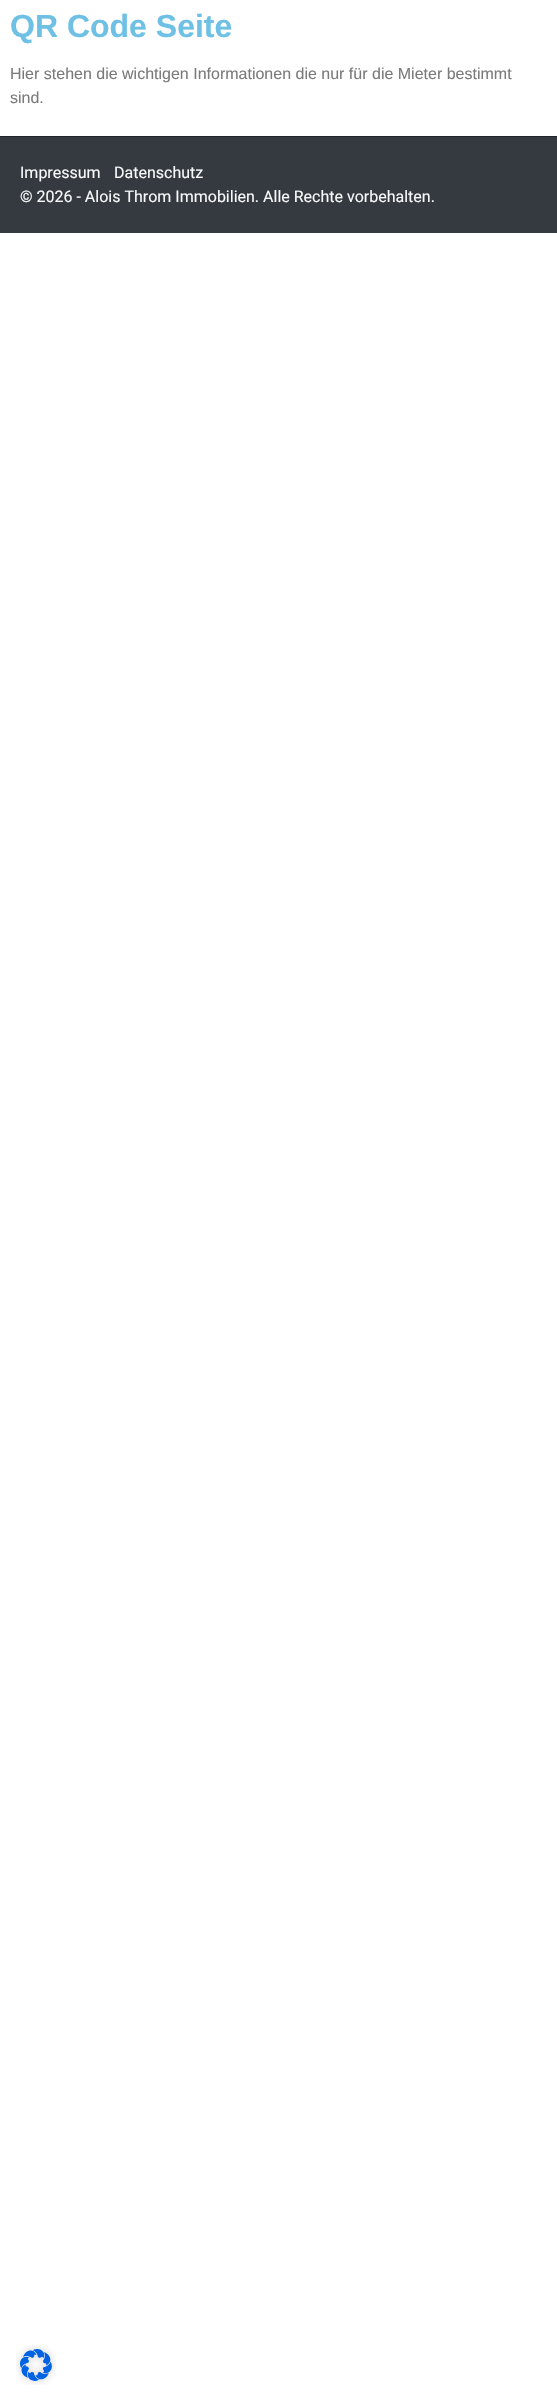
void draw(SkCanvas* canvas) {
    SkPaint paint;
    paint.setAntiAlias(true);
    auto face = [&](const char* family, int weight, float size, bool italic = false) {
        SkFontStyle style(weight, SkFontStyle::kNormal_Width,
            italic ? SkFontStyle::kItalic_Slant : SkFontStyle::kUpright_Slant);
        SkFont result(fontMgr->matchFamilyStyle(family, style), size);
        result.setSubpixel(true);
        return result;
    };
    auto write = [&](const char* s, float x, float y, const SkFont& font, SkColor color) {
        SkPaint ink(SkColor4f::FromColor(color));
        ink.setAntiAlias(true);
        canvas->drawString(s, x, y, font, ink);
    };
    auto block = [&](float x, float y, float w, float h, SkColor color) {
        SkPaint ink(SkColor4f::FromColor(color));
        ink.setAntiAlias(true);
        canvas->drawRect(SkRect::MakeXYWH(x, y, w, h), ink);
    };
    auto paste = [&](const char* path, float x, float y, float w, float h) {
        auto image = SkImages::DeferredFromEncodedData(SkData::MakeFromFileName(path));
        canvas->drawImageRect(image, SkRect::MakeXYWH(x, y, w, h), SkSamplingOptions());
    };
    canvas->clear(SK_ColorWHITE);
    auto kFont1 = face("Liberation Sans", 700, 32);
    write("QR Code Seite", 10, 37, kFont1, SkColorSetRGB(110, 193, 228));
    auto kFont2 = face("Liberation Sans", 400, 16);
    write("Hier stehen die wichtigen Informationen die nur für die Mieter bestimmt", 10, 79, kFont2, SkColorSetRGB(122, 122, 122));
    write("sind.", 10, 103, kFont2, SkColorSetRGB(122, 122, 122));
    block(0, 137, 557, 96, SkColorSetRGB(52, 58, 64));
    block(0, 136, 557, 1, SkColorSetRGB(33, 37, 41));
    auto kFont3 = face("Roboto", 400, 16);
    write("Impressum", 20, 178, kFont3, SkColorSetRGB(248, 249, 250));
    write("Datenschutz", 114, 178, kFont3, SkColorSetRGB(248, 249, 250));
    write("© 2026 - Alois Throm Immobilien. Alle Rechte vorbehalten.", 20, 202, kFont3, SkColorSetRGB(248, 249, 250));
    paste("pic1.png", 16, 2345, 40, 40);
}
